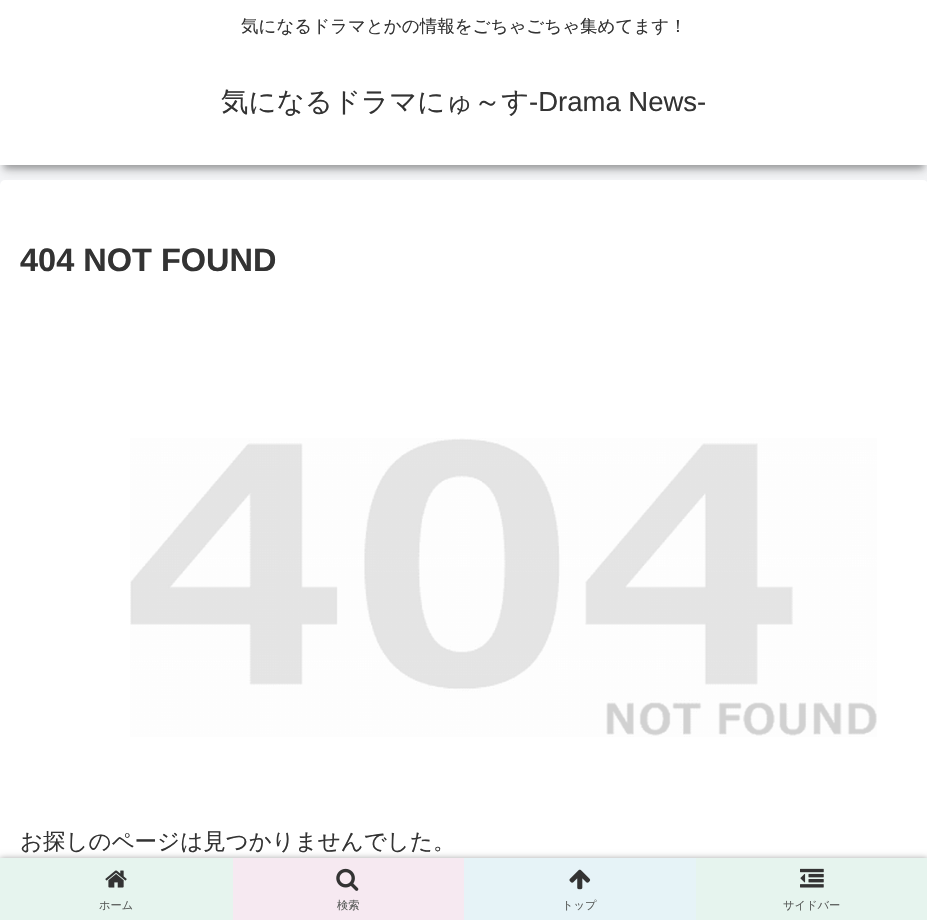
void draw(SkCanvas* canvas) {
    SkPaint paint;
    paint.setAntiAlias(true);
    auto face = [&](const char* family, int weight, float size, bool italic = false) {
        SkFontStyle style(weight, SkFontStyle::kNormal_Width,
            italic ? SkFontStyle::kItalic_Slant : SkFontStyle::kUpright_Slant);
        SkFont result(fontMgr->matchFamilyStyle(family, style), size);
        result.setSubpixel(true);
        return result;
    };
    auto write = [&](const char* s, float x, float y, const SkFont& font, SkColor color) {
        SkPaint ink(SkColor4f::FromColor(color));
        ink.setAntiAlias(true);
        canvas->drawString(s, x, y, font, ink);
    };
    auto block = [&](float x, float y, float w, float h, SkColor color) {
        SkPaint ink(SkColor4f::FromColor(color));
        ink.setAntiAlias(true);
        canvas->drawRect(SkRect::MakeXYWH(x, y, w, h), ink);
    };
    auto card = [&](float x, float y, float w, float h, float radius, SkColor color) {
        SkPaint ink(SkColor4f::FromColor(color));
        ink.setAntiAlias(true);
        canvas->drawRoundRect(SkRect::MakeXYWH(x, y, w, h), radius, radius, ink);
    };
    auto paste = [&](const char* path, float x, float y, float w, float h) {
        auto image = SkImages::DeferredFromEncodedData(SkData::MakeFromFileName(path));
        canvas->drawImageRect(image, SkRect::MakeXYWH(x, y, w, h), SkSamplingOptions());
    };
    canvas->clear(SkColorSetRGB(244, 245, 247));
    paint.setColor(SkColorSetARGB(46, 0, 0, 0));
    paint.setMaskFilter(SkMaskFilter::MakeBlur(kNormal_SkBlurStyle, 6));
    canvas->drawRect(SkRect::MakeXYWH(4, 11, 920, 158), paint);
    paint.setMaskFilter(nullptr);
    paint.setColor(SkColorSetARGB(61, 0, 0, 0));
    paint.setMaskFilter(SkMaskFilter::MakeBlur(kNormal_SkBlurStyle, 3));
    canvas->drawRect(SkRect::MakeXYWH(4, 11, 920, 158), paint);
    paint.setMaskFilter(nullptr);
    block(0, 0, 927, 165, SK_ColorWHITE);
    auto kFont1 = face("WenQuanYi Zen Hei", 500, 17.5f);
    write("気になるドラマとかの情報をごちゃごちゃ集めてます！", 241, 32, kFont1, SkColorSetRGB(51, 51, 51));
    auto kFont2 = face("WenQuanYi Zen Hei", 500, 27.5f);
    write("気になるドラマにゅ～す", 221, 111, kFont2, SkColorSetRGB(51, 51, 51));
    auto kFont3 = face("Liberation Sans", 400, 27.5f);
    write("-Drama News-", 529, 111, kFont3, SkColorSetRGB(51, 51, 51));
    card(0, 180, 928, 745, 5, SK_ColorWHITE);
    auto kFont4 = face("Liberation Sans", 700, 32.5f);
    write("404 NOT FOUND", 20, 271, kFont4, SkColorSetRGB(51, 51, 51));
    paste("pic1.png", 130, 438, 747, 299);
    auto kFont5 = face("WenQuanYi Zen Hei", 500, 22.5f);
    write("お探しのページは見つかりませんでした。", 20, 849, kFont5, SkColorSetRGB(51, 51, 51));
    paint.setColor(SkColorSetRGB(169, 169, 169));
    paint.setMaskFilter(SkMaskFilter::MakeBlur(kNormal_SkBlurStyle, 3));
    canvas->drawRect(SkRect::MakeXYWH(0, 858, 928, 62), paint);
    paint.setMaskFilter(nullptr);
    block(0, 858, 233, 62, SkColorSetRGB(230, 244, 238));
    paste("pic2.png", 105, 870, 22, 18);
    auto kFont6 = face("WenQuanYi Zen Hei", 500, 11.25f);
    write("ホーム", 99, 909, kFont6, SkColorSetRGB(87, 90, 88));
    block(233, 858, 231, 62, SkColorSetRGB(246, 233, 241));
    paste("pic3.png", 336, 868, 23, 23);
    write("検索", 337, 909, kFont6, SkColorSetRGB(87, 90, 88));
    block(464, 858, 232, 62, SkColorSetRGB(230, 243, 247));
    paste("pic4.png", 569, 869, 22, 21);
    write("トップ", 562, 909, kFont6, SkColorSetRGB(87, 90, 88));
    block(696, 858, 231, 62, SkColorSetRGB(230, 244, 238));
    paste("pic5.png", 800, 868, 24, 20);
    write("サイドバー", 783, 909, kFont6, SkColorSetRGB(87, 90, 88));
}
